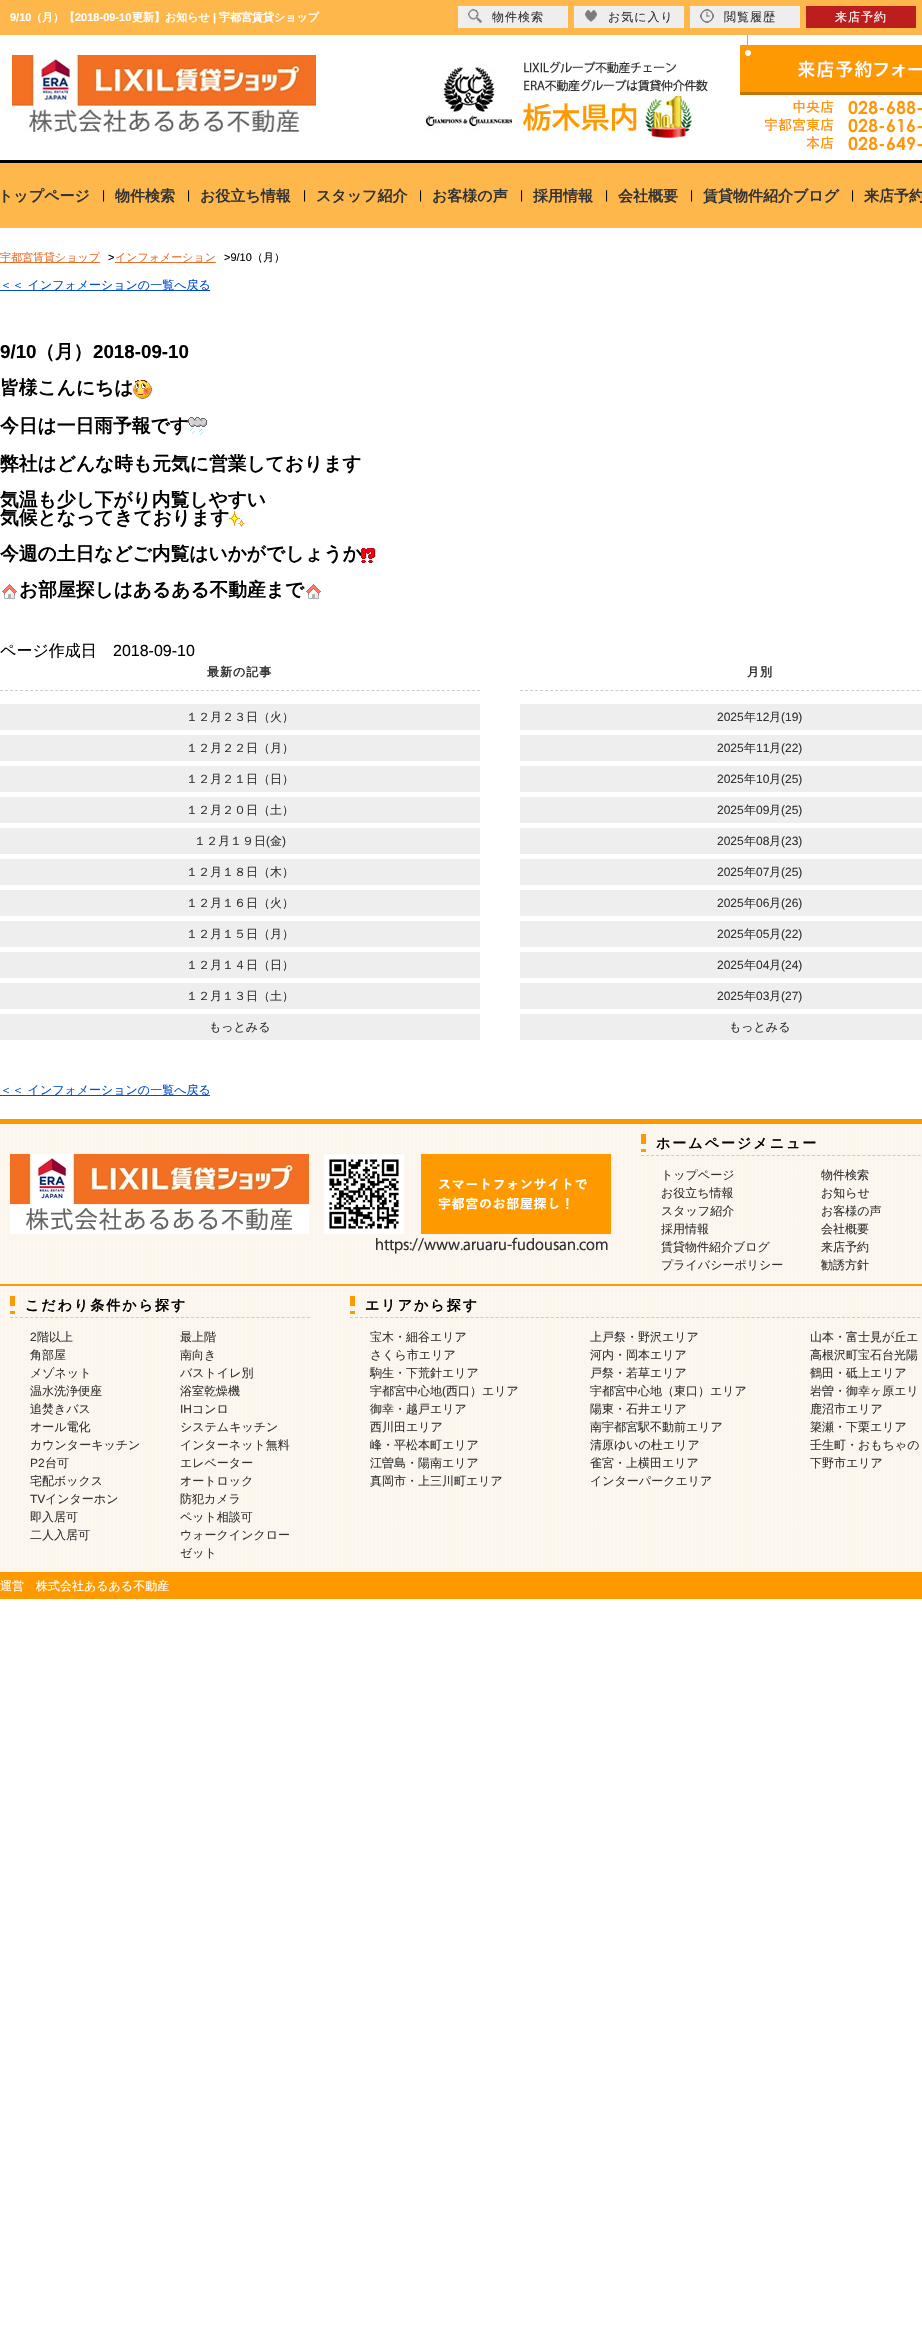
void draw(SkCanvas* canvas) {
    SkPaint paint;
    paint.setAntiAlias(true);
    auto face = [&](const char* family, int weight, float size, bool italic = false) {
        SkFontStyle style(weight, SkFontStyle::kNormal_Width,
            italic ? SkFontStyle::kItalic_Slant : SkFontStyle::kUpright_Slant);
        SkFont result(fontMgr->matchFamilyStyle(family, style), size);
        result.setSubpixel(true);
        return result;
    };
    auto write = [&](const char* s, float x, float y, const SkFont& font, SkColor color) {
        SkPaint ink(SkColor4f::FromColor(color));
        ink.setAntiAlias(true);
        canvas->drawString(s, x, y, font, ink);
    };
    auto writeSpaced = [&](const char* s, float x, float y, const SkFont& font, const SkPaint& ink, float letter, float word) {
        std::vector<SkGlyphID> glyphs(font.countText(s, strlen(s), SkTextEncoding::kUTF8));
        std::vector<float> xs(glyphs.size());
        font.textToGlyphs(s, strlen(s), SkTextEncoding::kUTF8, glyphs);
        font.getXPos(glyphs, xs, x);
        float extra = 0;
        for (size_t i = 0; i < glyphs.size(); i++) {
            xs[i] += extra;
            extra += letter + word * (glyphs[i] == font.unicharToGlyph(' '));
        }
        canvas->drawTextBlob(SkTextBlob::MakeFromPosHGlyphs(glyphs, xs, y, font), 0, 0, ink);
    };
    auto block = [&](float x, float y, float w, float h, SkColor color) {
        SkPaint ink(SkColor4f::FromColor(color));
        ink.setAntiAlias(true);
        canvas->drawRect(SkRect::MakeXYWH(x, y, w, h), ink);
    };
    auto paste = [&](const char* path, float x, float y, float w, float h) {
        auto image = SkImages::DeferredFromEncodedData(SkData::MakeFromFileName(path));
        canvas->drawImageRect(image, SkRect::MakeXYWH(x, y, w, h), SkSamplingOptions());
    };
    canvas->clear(SK_ColorWHITE);
    block(0, 0, 922, 35, SkColorSetRGB(254, 183, 75));
    auto kFont1 = face("Liberation Sans", 700, 11);
    write("9/10", 10, 21, kFont1, SK_ColorWHITE);
    auto kFont2 = face("WenQuanYi Zen Hei", 700, 11);
    write("（月）【", 31, 21, kFont2, SK_ColorWHITE);
    write("2018-09-10", 75, 21, kFont1, SK_ColorWHITE);
    write("更新】お知らせ", 132, 21, kFont2, SK_ColorWHITE);
    write("|", 213, 21, kFont1, SK_ColorWHITE);
    write("宇都宮賃貸ショップ", 219, 21, kFont2, SK_ColorWHITE);
    block(458, 6, 110, 22, SkColorSetRGB(238, 238, 238));
    paste("pic1.png", 468, 9, 14, 14);
    auto kFont3 = face("WenQuanYi Zen Hei", 500, 12);
    paint.setColor(SkColorSetRGB(51, 51, 51));
    writeSpaced("物件検索", 492, 21, kFont3, paint, 1, 0);
    block(574, 6, 110, 22, SkColorSetRGB(238, 238, 238));
    paste("pic2.png", 585, 10, 12, 12);
    writeSpaced("お気に入り", 608, 21, kFont3, paint, 1, 0);
    block(690, 6, 110, 22, SkColorSetRGB(238, 238, 238));
    paste("pic3.png", 700, 9, 14, 14);
    writeSpaced("閲覧履歴", 724, 21, kFont3, paint, 1, 0);
    block(806, 6, 110, 22, SkColorSetRGB(188, 30, 30));
    paint.setColor(SK_ColorWHITE);
    writeSpaced("来店予約", 835, 21, kFont3, paint, 1, 0);
    paste("pic4.png", 8, 53, 704, 88);
    paste("pic5.png", 740, 35, 182, 60);
    paste("pic6.png", 765, 100, 157, 51);
    block(0, 163, 922, 65, SkColorSetRGB(254, 183, 75));
    block(0, 160, 922, 3, SK_ColorBLACK);
    auto kFont4 = face("WenQuanYi Zen Hei", 700, 15);
    write("トップページ", -2, 201, kFont4, SkColorSetRGB(51, 51, 51));
    auto kFont5 = face("Liberation Sans", 400, 12);
    write("|", 102, 199, kFont5, SK_ColorBLACK);
    write("物件検索", 115, 201, kFont4, SkColorSetRGB(51, 51, 51));
    write("|", 187, 199, kFont5, SK_ColorBLACK);
    write("お役立ち情報", 200, 201, kFont4, SkColorSetRGB(51, 51, 51));
    write("|", 303, 199, kFont5, SK_ColorBLACK);
    write("スタッフ紹介", 316, 201, kFont4, SkColorSetRGB(51, 51, 51));
    write("|", 419, 199, kFont5, SK_ColorBLACK);
    write("お客様の声", 432, 201, kFont4, SkColorSetRGB(51, 51, 51));
    write("|", 520, 199, kFont5, SK_ColorBLACK);
    write("採用情報", 533, 201, kFont4, SkColorSetRGB(51, 51, 51));
    write("|", 605, 199, kFont5, SK_ColorBLACK);
    write("会社概要", 618, 201, kFont4, SkColorSetRGB(51, 51, 51));
    write("|", 690, 199, kFont5, SK_ColorBLACK);
    write("賃貸物件紹介ブログ", 703, 201, kFont4, SkColorSetRGB(51, 51, 51));
    write("|", 851, 199, kFont5, SK_ColorBLACK);
    write("来店予約", 864, 201, kFont4, SkColorSetRGB(51, 51, 51));
    block(0, 262, 100, 1, SkColorSetRGB(234, 109, 40));
    auto kFont6 = face("WenQuanYi Zen Hei", 500, 11);
    write("宇都宮賃貸ショップ", 0, 261, kFont6, SkColorSetRGB(234, 109, 40));
    auto kFont7 = face("Liberation Sans", 400, 11);
    write(">", 108, 261, kFont7, SK_ColorBLACK);
    block(115, 262, 101, 1, SkColorSetRGB(234, 109, 40));
    write("インフォメーション", 115, 261, kFont6, SkColorSetRGB(234, 109, 40));
    write(">9/10", 224, 261, kFont7, SK_ColorBLACK);
    write("（月）", 252, 261, kFont6, SK_ColorBLACK);
    block(0, 290, 210, 1, SkColorSetRGB(0, 76, 211));
    write("＜＜ インフォメーションの一覧へ戻る", 0, 289, kFont3, SkColorSetRGB(0, 76, 211));
    auto kFont8 = face("Liberation Sans", 700, 18.75f);
    write("9/10", 0, 358, kFont8, SK_ColorBLACK);
    auto kFont9 = face("WenQuanYi Zen Hei", 700, 18.75f);
    write("（月）", 36, 358, kFont9, SK_ColorBLACK);
    write("2018-09-10", 93, 358, kFont8, SK_ColorBLACK);
    write("皆様こんにちは", 0, 394, kFont9, SK_ColorBLACK);
    paste("pic7.png", 133, 380, 19, 19);
    write("今日は一日雨予報です", 0, 432, kFont9, SK_ColorBLACK);
    paste("pic8.png", 188, 417, 19, 18);
    write("弊社はどんな時も元気に営業しております", 0, 470, kFont9, SK_ColorBLACK);
    write("気温も少し下がり内覧しやすい", 0, 506, kFont9, SK_ColorBLACK);
    write("気候となってきております", 0, 524, kFont9, SK_ColorBLACK);
    paste("pic9.png", 229, 511, 16, 16);
    write("今週の土日などご内覧はいかがでしょうか", 0, 560, kFont9, SK_ColorBLACK);
    paste("pic10.png", 361, 548, 15, 15);
    paste("pic11.png", 2, 584, 15, 15);
    write("お部屋探しはあるある不動産まで", 19, 596, kFont9, SK_ColorBLACK);
    paste("pic11.png", 306, 584, 15, 15);
    auto kFont10 = face("WenQuanYi Zen Hei", 500, 16);
    write("ページ作成日", 0, 656, kFont10, SK_ColorBLACK);
    auto kFont11 = face("Liberation Sans", 400, 16);
    write("2018-09-10", 113, 656, kFont11, SK_ColorBLACK);
    paint.setStyle(SkPaint::kStroke_Style);
    paint.setStrokeWidth(1);
    paint.setColor(SkColorSetRGB(204, 204, 204));
    paint.setPathEffect(SkDashPathEffect::Make({{3, 2.02f}}, 0));
    canvas->drawPath(SkPathBuilder().moveTo(0, 690.5f).lineTo(480, 690.5f).detach(), paint);
    paint.setPathEffect(nullptr);
    auto kFont12 = face("WenQuanYi Zen Hei", 700, 12);
    paint.setStyle(SkPaint::kFill_Style);
    paint.setColor(SkColorSetRGB(51, 51, 51));
    writeSpaced("最新の記事", 207, 676, kFont12, paint, 1, 0);
    block(0, 704, 480, 26, SkColorSetRGB(238, 238, 238));
    write("１２月２３日（火）", 186, 721, kFont3, SkColorSetRGB(51, 51, 51));
    block(0, 735, 480, 26, SkColorSetRGB(238, 238, 238));
    write("１２月２２日（月）", 186, 752, kFont3, SkColorSetRGB(51, 51, 51));
    block(0, 766, 480, 26, SkColorSetRGB(238, 238, 238));
    write("１２月２１日（日）", 186, 783, kFont3, SkColorSetRGB(51, 51, 51));
    block(0, 797, 480, 26, SkColorSetRGB(238, 238, 238));
    write("１２月２０日（土）", 186, 814, kFont3, SkColorSetRGB(51, 51, 51));
    block(0, 828, 480, 26, SkColorSetRGB(238, 238, 238));
    write("１２月１９日", 194, 845, kFont3, SkColorSetRGB(51, 51, 51));
    write("(", 266, 845, kFont5, SkColorSetRGB(51, 51, 51));
    write("金", 270, 845, kFont3, SkColorSetRGB(51, 51, 51));
    write(")", 282, 845, kFont5, SkColorSetRGB(51, 51, 51));
    block(0, 859, 480, 26, SkColorSetRGB(238, 238, 238));
    write("１２月１８日（木）", 186, 876, kFont3, SkColorSetRGB(51, 51, 51));
    block(0, 890, 480, 26, SkColorSetRGB(238, 238, 238));
    write("１２月１６日（火）", 186, 907, kFont3, SkColorSetRGB(51, 51, 51));
    block(0, 921, 480, 26, SkColorSetRGB(238, 238, 238));
    write("１２月１５日（月）", 186, 938, kFont3, SkColorSetRGB(51, 51, 51));
    block(0, 952, 480, 26, SkColorSetRGB(238, 238, 238));
    write("１２月１４日（日）", 186, 969, kFont3, SkColorSetRGB(51, 51, 51));
    block(0, 983, 480, 26, SkColorSetRGB(238, 238, 238));
    write("１２月１３日（土）", 186, 1000, kFont3, SkColorSetRGB(51, 51, 51));
    block(0, 1014, 480, 26, SkColorSetRGB(238, 238, 238));
    write("もっとみる", 209, 1031, kFont3, SkColorSetRGB(51, 51, 51));
    paint.setStyle(SkPaint::kStroke_Style);
    paint.setColor(SkColorSetRGB(204, 204, 204));
    paint.setPathEffect(SkDashPathEffect::Make({{3, 2.02f}}, 0));
    canvas->drawPath(SkPathBuilder().moveTo(520, 690.5f).lineTo(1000, 690.5f).detach(), paint);
    paint.setPathEffect(nullptr);
    paint.setStyle(SkPaint::kFill_Style);
    paint.setColor(SkColorSetRGB(51, 51, 51));
    writeSpaced("月別", 747, 676, kFont12, paint, 1, 0);
    block(520, 704, 402, 26, SkColorSetRGB(238, 238, 238));
    write("2025", 717, 721, kFont5, SkColorSetRGB(51, 51, 51));
    write("年", 744, 721, kFont3, SkColorSetRGB(51, 51, 51));
    write("12", 756, 721, kFont5, SkColorSetRGB(51, 51, 51));
    write("月", 769, 721, kFont3, SkColorSetRGB(51, 51, 51));
    write("(19)", 781, 721, kFont5, SkColorSetRGB(51, 51, 51));
    block(520, 735, 402, 26, SkColorSetRGB(238, 238, 238));
    write("2025", 717, 752, kFont5, SkColorSetRGB(51, 51, 51));
    write("年", 744, 752, kFont3, SkColorSetRGB(51, 51, 51));
    write("11", 756, 752, kFont5, SkColorSetRGB(51, 51, 51));
    write("月", 769, 752, kFont3, SkColorSetRGB(51, 51, 51));
    write("(22)", 781, 752, kFont5, SkColorSetRGB(51, 51, 51));
    block(520, 766, 402, 26, SkColorSetRGB(238, 238, 238));
    write("2025", 717, 783, kFont5, SkColorSetRGB(51, 51, 51));
    write("年", 744, 783, kFont3, SkColorSetRGB(51, 51, 51));
    write("10", 756, 783, kFont5, SkColorSetRGB(51, 51, 51));
    write("月", 769, 783, kFont3, SkColorSetRGB(51, 51, 51));
    write("(25)", 781, 783, kFont5, SkColorSetRGB(51, 51, 51));
    block(520, 797, 402, 26, SkColorSetRGB(238, 238, 238));
    write("2025", 717, 814, kFont5, SkColorSetRGB(51, 51, 51));
    write("年", 744, 814, kFont3, SkColorSetRGB(51, 51, 51));
    write("09", 756, 814, kFont5, SkColorSetRGB(51, 51, 51));
    write("月", 769, 814, kFont3, SkColorSetRGB(51, 51, 51));
    write("(25)", 781, 814, kFont5, SkColorSetRGB(51, 51, 51));
    block(520, 828, 402, 26, SkColorSetRGB(238, 238, 238));
    write("2025", 717, 845, kFont5, SkColorSetRGB(51, 51, 51));
    write("年", 744, 845, kFont3, SkColorSetRGB(51, 51, 51));
    write("08", 756, 845, kFont5, SkColorSetRGB(51, 51, 51));
    write("月", 769, 845, kFont3, SkColorSetRGB(51, 51, 51));
    write("(23)", 781, 845, kFont5, SkColorSetRGB(51, 51, 51));
    block(520, 859, 402, 26, SkColorSetRGB(238, 238, 238));
    write("2025", 717, 876, kFont5, SkColorSetRGB(51, 51, 51));
    write("年", 744, 876, kFont3, SkColorSetRGB(51, 51, 51));
    write("07", 756, 876, kFont5, SkColorSetRGB(51, 51, 51));
    write("月", 769, 876, kFont3, SkColorSetRGB(51, 51, 51));
    write("(25)", 781, 876, kFont5, SkColorSetRGB(51, 51, 51));
    block(520, 890, 402, 26, SkColorSetRGB(238, 238, 238));
    write("2025", 717, 907, kFont5, SkColorSetRGB(51, 51, 51));
    write("年", 744, 907, kFont3, SkColorSetRGB(51, 51, 51));
    write("06", 756, 907, kFont5, SkColorSetRGB(51, 51, 51));
    write("月", 769, 907, kFont3, SkColorSetRGB(51, 51, 51));
    write("(26)", 781, 907, kFont5, SkColorSetRGB(51, 51, 51));
    block(520, 921, 402, 26, SkColorSetRGB(238, 238, 238));
    write("2025", 717, 938, kFont5, SkColorSetRGB(51, 51, 51));
    write("年", 744, 938, kFont3, SkColorSetRGB(51, 51, 51));
    write("05", 756, 938, kFont5, SkColorSetRGB(51, 51, 51));
    write("月", 769, 938, kFont3, SkColorSetRGB(51, 51, 51));
    write("(22)", 781, 938, kFont5, SkColorSetRGB(51, 51, 51));
    block(520, 952, 402, 26, SkColorSetRGB(238, 238, 238));
    write("2025", 717, 969, kFont5, SkColorSetRGB(51, 51, 51));
    write("年", 744, 969, kFont3, SkColorSetRGB(51, 51, 51));
    write("04", 756, 969, kFont5, SkColorSetRGB(51, 51, 51));
    write("月", 769, 969, kFont3, SkColorSetRGB(51, 51, 51));
    write("(24)", 781, 969, kFont5, SkColorSetRGB(51, 51, 51));
    block(520, 983, 402, 26, SkColorSetRGB(238, 238, 238));
    write("2025", 717, 1000, kFont5, SkColorSetRGB(51, 51, 51));
    write("年", 744, 1000, kFont3, SkColorSetRGB(51, 51, 51));
    write("03", 756, 1000, kFont5, SkColorSetRGB(51, 51, 51));
    write("月", 769, 1000, kFont3, SkColorSetRGB(51, 51, 51));
    write("(27)", 781, 1000, kFont5, SkColorSetRGB(51, 51, 51));
    block(520, 1014, 402, 26, SkColorSetRGB(238, 238, 238));
    write("もっとみる", 729, 1031, kFont3, SkColorSetRGB(51, 51, 51));
    block(0, 1095, 210, 1, SkColorSetRGB(0, 76, 211));
    write("＜＜ インフォメーションの一覧へ戻る", 0, 1094, kFont3, SkColorSetRGB(0, 76, 211));
    paste("pic12.png", 0, 1124, 922, 448);
    block(0, 1119, 922, 5, SkColorSetRGB(254, 153, 0));
    block(0, 1284, 922, 2, SkColorSetRGB(254, 153, 0));
    paste("pic13.png", 10, 1154, 601, 100);
    paint.setStyle(SkPaint::kStroke_Style);
    paint.setColor(SkColorSetRGB(204, 204, 204));
    paint.setPathEffect(SkDashPathEffect::Make({{3, 2.03f}}, 0));
    canvas->drawPath(SkPathBuilder().moveTo(641, 1155.5f).lineTo(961, 1155.5f).detach(), paint);
    paint.setPathEffect(nullptr);
    paint.setStrokeWidth(5);
    paint.setColor(SkColorSetRGB(254, 153, 0));
    canvas->drawPath(SkPathBuilder().moveTo(643.5f, 1134).lineTo(643.5f, 1144).moveTo(643.5f, 1149).lineTo(643.5f, 1152).detach(), paint);
    auto kFont13 = face("WenQuanYi Zen Hei", 700, 14);
    paint.setStyle(SkPaint::kFill_Style);
    paint.setColor(SK_ColorBLACK);
    writeSpaced("ホームページメニュー", 656, 1148, kFont13, paint, 2, 0);
    write("トップページ", 661, 1179, kFont3, SkColorSetRGB(51, 51, 51));
    write("物件検索", 821, 1179, kFont3, SkColorSetRGB(51, 51, 51));
    write("お役立ち情報", 661, 1197, kFont3, SkColorSetRGB(51, 51, 51));
    write("お知らせ", 821, 1197, kFont3, SkColorSetRGB(51, 51, 51));
    write("スタッフ紹介", 661, 1215, kFont3, SkColorSetRGB(51, 51, 51));
    write("お客様の声", 821, 1215, kFont3, SkColorSetRGB(51, 51, 51));
    write("採用情報", 661, 1233, kFont3, SkColorSetRGB(51, 51, 51));
    write("会社概要", 821, 1233, kFont3, SkColorSetRGB(51, 51, 51));
    write("賃貸物件紹介ブログ", 661, 1251, kFont3, SkColorSetRGB(51, 51, 51));
    write("来店予約", 821, 1251, kFont3, SkColorSetRGB(51, 51, 51));
    write("プライバシーポリシー", 661, 1269, kFont3, SkColorSetRGB(51, 51, 51));
    write("勧誘方針", 821, 1269, kFont3, SkColorSetRGB(51, 51, 51));
    paint.setStyle(SkPaint::kStroke_Style);
    paint.setStrokeWidth(1);
    paint.setColor(SkColorSetRGB(204, 204, 204));
    paint.setPathEffect(SkDashPathEffect::Make({{3, 2.03f}}, 0));
    canvas->drawPath(SkPathBuilder().moveTo(10, 1317.5f).lineTo(310, 1317.5f).detach(), paint);
    paint.setPathEffect(nullptr);
    paint.setStrokeWidth(5);
    paint.setColor(SkColorSetRGB(254, 153, 0));
    canvas->drawPath(SkPathBuilder().moveTo(12.5f, 1296).lineTo(12.5f, 1306).moveTo(12.5f, 1311).lineTo(12.5f, 1314).detach(), paint);
    paint.setStyle(SkPaint::kFill_Style);
    paint.setColor(SK_ColorBLACK);
    writeSpaced("こだわり条件から探す", 25, 1310, kFont13, paint, 2, 0);
    write("2", 30, 1341, kFont5, SkColorSetRGB(51, 51, 51));
    write("階以上", 37, 1341, kFont3, SkColorSetRGB(51, 51, 51));
    write("最上階", 180, 1341, kFont3, SkColorSetRGB(51, 51, 51));
    write("角部屋", 30, 1359, kFont3, SkColorSetRGB(51, 51, 51));
    write("南向き", 180, 1359, kFont3, SkColorSetRGB(51, 51, 51));
    write("メゾネット", 30, 1377, kFont3, SkColorSetRGB(51, 51, 51));
    write("バストイレ別", 180, 1377, kFont3, SkColorSetRGB(51, 51, 51));
    write("温水洗浄便座", 30, 1395, kFont3, SkColorSetRGB(51, 51, 51));
    write("浴室乾燥機", 180, 1395, kFont3, SkColorSetRGB(51, 51, 51));
    write("追焚きバス", 30, 1413, kFont3, SkColorSetRGB(51, 51, 51));
    write("IH", 180, 1413, kFont5, SkColorSetRGB(51, 51, 51));
    write("コンロ", 192, 1413, kFont3, SkColorSetRGB(51, 51, 51));
    write("オール電化", 30, 1431, kFont3, SkColorSetRGB(51, 51, 51));
    write("システムキッチン", 180, 1431, kFont3, SkColorSetRGB(51, 51, 51));
    write("カウンターキッチン", 30, 1449, kFont3, SkColorSetRGB(51, 51, 51));
    write("インターネット無料", 180, 1449, kFont3, SkColorSetRGB(51, 51, 51));
    write("P2", 30, 1467, kFont5, SkColorSetRGB(51, 51, 51));
    write("台可", 45, 1467, kFont3, SkColorSetRGB(51, 51, 51));
    write("エレベーター", 180, 1467, kFont3, SkColorSetRGB(51, 51, 51));
    write("宅配ボックス", 30, 1485, kFont3, SkColorSetRGB(51, 51, 51));
    write("オートロック", 180, 1485, kFont3, SkColorSetRGB(51, 51, 51));
    write("TV", 30, 1503, kFont5, SkColorSetRGB(51, 51, 51));
    write("インターホン", 45, 1503, kFont3, SkColorSetRGB(51, 51, 51));
    write("防犯カメラ", 180, 1503, kFont3, SkColorSetRGB(51, 51, 51));
    write("即入居可", 30, 1521, kFont3, SkColorSetRGB(51, 51, 51));
    write("ペット相談可", 180, 1521, kFont3, SkColorSetRGB(51, 51, 51));
    write("二人入居可", 30, 1539, kFont3, SkColorSetRGB(51, 51, 51));
    write("ウォークインクロー", 180, 1539, kFont3, SkColorSetRGB(51, 51, 51));
    write("ゼット", 180, 1557, kFont3, SkColorSetRGB(51, 51, 51));
    paint.setStyle(SkPaint::kStroke_Style);
    paint.setStrokeWidth(1);
    paint.setColor(SkColorSetRGB(204, 204, 204));
    paint.setPathEffect(SkDashPathEffect::Make({{3, 2.02f}}, 0));
    canvas->drawPath(SkPathBuilder().moveTo(350, 1317.5f).lineTo(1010, 1317.5f).detach(), paint);
    paint.setPathEffect(nullptr);
    paint.setStrokeWidth(5);
    paint.setColor(SkColorSetRGB(254, 153, 0));
    canvas->drawPath(SkPathBuilder().moveTo(352.5f, 1296).lineTo(352.5f, 1306).moveTo(352.5f, 1311).lineTo(352.5f, 1314).detach(), paint);
    paint.setStyle(SkPaint::kFill_Style);
    paint.setColor(SK_ColorBLACK);
    writeSpaced("エリアから探す", 365, 1310, kFont13, paint, 2, 0);
    write("宝木・細谷エリア", 370, 1341, kFont3, SkColorSetRGB(51, 51, 51));
    write("上戸祭・野沢エリア", 590, 1341, kFont3, SkColorSetRGB(51, 51, 51));
    write("山本・富士見が丘エ", 810, 1341, kFont3, SkColorSetRGB(51, 51, 51));
    write("さくら市エリア", 370, 1359, kFont3, SkColorSetRGB(51, 51, 51));
    write("河内・岡本エリア", 590, 1359, kFont3, SkColorSetRGB(51, 51, 51));
    write("高根沢町宝石台光陽", 810, 1359, kFont3, SkColorSetRGB(51, 51, 51));
    write("駒生・下荒針エリア", 370, 1377, kFont3, SkColorSetRGB(51, 51, 51));
    write("戸祭・若草エリア", 590, 1377, kFont3, SkColorSetRGB(51, 51, 51));
    write("鶴田・砥上エリア", 810, 1377, kFont3, SkColorSetRGB(51, 51, 51));
    write("宇都宮中心地", 370, 1395, kFont3, SkColorSetRGB(51, 51, 51));
    write("(", 442, 1395, kFont5, SkColorSetRGB(51, 51, 51));
    write("西口）エリア", 446, 1395, kFont3, SkColorSetRGB(51, 51, 51));
    write("宇都宮中心地（東口）エリア", 590, 1395, kFont3, SkColorSetRGB(51, 51, 51));
    write("岩曽・御幸ヶ原エリ", 810, 1395, kFont3, SkColorSetRGB(51, 51, 51));
    write("御幸・越戸エリア", 370, 1413, kFont3, SkColorSetRGB(51, 51, 51));
    write("陽東・石井エリア", 590, 1413, kFont3, SkColorSetRGB(51, 51, 51));
    write("鹿沼市エリア", 810, 1413, kFont3, SkColorSetRGB(51, 51, 51));
    write("西川田エリア", 370, 1431, kFont3, SkColorSetRGB(51, 51, 51));
    write("南宇都宮駅不動前エリア", 590, 1431, kFont3, SkColorSetRGB(51, 51, 51));
    write("簗瀬・下栗エリア", 810, 1431, kFont3, SkColorSetRGB(51, 51, 51));
    write("峰・平松本町エリア", 370, 1449, kFont3, SkColorSetRGB(51, 51, 51));
    write("清原ゆいの杜エリア", 590, 1449, kFont3, SkColorSetRGB(51, 51, 51));
    write("壬生町・おもちゃの", 810, 1449, kFont3, SkColorSetRGB(51, 51, 51));
    write("江曽島・陽南エリア", 370, 1467, kFont3, SkColorSetRGB(51, 51, 51));
    write("雀宮・上横田エリア", 590, 1467, kFont3, SkColorSetRGB(51, 51, 51));
    write("下野市エリア", 810, 1467, kFont3, SkColorSetRGB(51, 51, 51));
    write("真岡市・上三川町エリア", 370, 1485, kFont3, SkColorSetRGB(51, 51, 51));
    write("インターパークエリア", 590, 1485, kFont3, SkColorSetRGB(51, 51, 51));
    block(0, 1572, 922, 27, SkColorSetRGB(254, 153, 0));
    write("運営　株式会社あるある不動産", 0, 1590, kFont3, SK_ColorWHITE);
}
